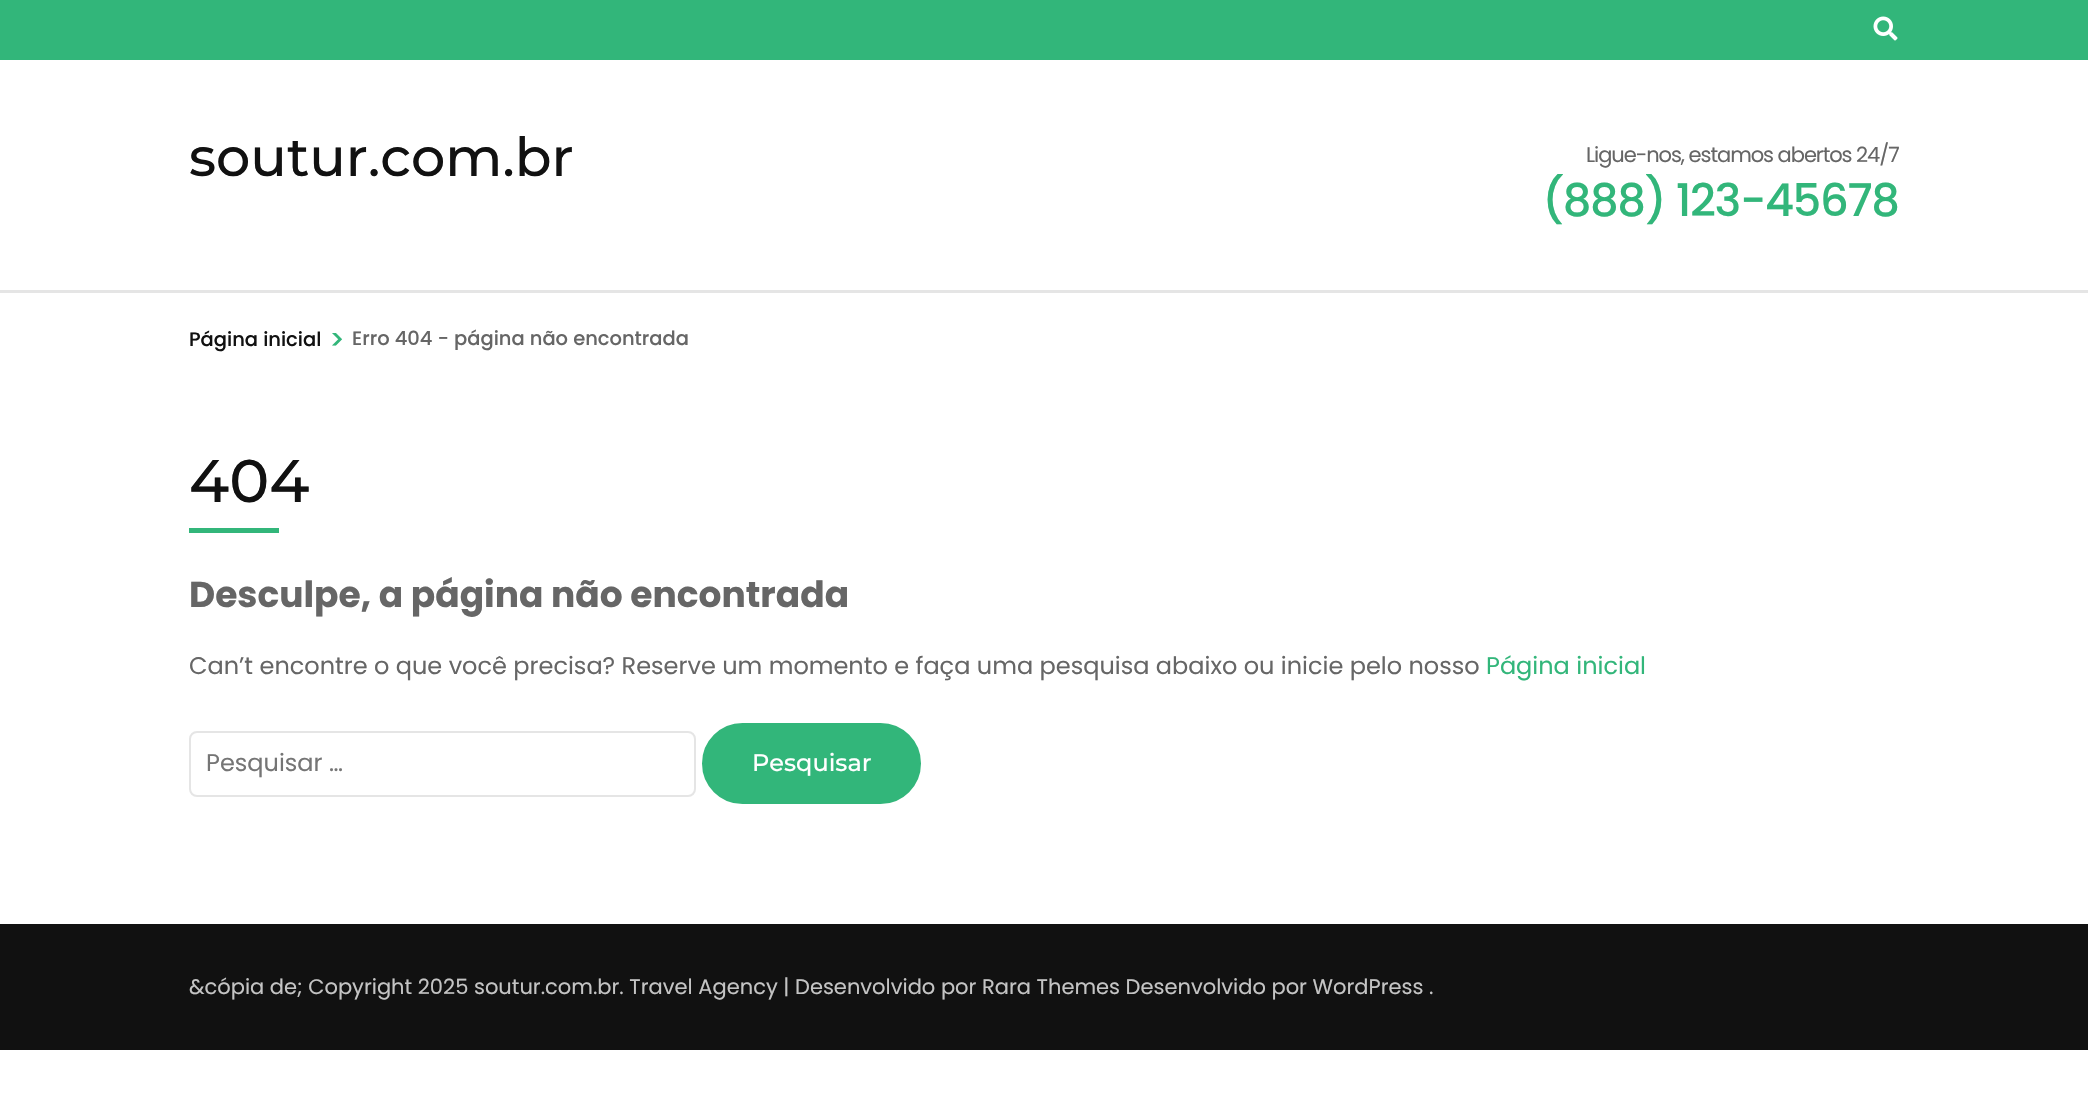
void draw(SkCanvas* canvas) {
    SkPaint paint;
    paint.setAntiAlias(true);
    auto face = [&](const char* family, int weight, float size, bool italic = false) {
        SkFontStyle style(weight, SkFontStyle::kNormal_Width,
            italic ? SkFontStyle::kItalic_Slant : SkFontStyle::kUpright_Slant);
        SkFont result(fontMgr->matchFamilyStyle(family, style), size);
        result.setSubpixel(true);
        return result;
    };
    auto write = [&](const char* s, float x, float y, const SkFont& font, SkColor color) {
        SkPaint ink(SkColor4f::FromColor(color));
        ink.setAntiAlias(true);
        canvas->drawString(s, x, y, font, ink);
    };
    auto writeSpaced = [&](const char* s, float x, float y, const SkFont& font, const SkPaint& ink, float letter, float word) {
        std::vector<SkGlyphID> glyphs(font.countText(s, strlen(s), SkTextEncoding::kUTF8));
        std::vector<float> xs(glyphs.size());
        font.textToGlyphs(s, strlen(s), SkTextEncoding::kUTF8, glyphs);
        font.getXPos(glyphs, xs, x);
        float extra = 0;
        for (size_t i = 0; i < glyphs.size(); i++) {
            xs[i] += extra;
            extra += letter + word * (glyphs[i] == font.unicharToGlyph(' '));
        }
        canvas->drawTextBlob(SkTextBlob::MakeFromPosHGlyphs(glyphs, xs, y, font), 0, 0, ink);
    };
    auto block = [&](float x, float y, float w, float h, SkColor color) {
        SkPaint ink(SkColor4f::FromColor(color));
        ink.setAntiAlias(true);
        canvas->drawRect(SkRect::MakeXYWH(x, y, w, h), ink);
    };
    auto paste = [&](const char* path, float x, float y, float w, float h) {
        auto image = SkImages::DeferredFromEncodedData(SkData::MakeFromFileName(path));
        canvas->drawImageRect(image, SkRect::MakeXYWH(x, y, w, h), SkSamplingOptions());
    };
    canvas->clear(SK_ColorWHITE);
    block(0, 0, 2088, 60, SkColorSetRGB(50, 182, 122));
    paste("pic1.png", 1873, 16, 25, 25);
    auto kFont1 = face("Montserrat", 500, 54);
    write("soutur.com.br", 189, 176, kFont1, SkColorSetRGB(17, 17, 17));
    auto kFont2 = face("Poppins", 400, 21);
    paint.setColor(SkColorSetRGB(102, 102, 102));
    writeSpaced("Ligue-nos, estamos abertos 24/7", 1586, 162, kFont2, paint, -1.05f, 0);
    auto kFont3 = face("Poppins", 500, 45);
    paint.setColor(SkColorSetRGB(50, 182, 122));
    writeSpaced("(888) 123-45678", 1542, 216, kFont3, paint, -1.4f, 0);
    block(0, 290, 2088, 3, SkColorSetRGB(229, 229, 229));
    auto kFont4 = face("Poppins", 500, 19.5f);
    write("Página inicial", 189, 346, kFont4, SkColorSetRGB(17, 17, 17));
    auto kFont5 = face("Poppins", 500, 27);
    write(">", 329, 349, kFont5, SkColorSetRGB(50, 182, 122));
    write("Erro 404 - página não encontrada", 352, 345, kFont4, SkColorSetRGB(102, 102, 102));
    auto kFont6 = face("Montserrat", 500, 60);
    write("404", 189, 502, kFont6, SkColorSetRGB(17, 17, 17));
    block(189, 528, 90, 5, SkColorSetRGB(50, 182, 122));
    auto kFont7 = face("Poppins", 700, 36);
    write("Desculpe, a página não encontrada", 189, 607, kFont7, SkColorSetRGB(102, 102, 102));
    auto kFont8 = face("Poppins", 400, 24);
    write("Can’t encontre o que você precisa? Reserve um momento e faça uma pesquisa abaixo ou inicie pelo nosso", 189, 674, kFont8, SkColorSetRGB(102, 102, 102));
    write("Página inicial", 1486, 674, kFont8, SkColorSetRGB(50, 182, 122));
    paint.setStyle(SkPaint::kStroke_Style);
    paint.setStrokeWidth(2);
    paint.setColor(SkColorSetRGB(229, 229, 229));
    canvas->drawRoundRect(SkRect::MakeXYWH(190, 732, 505, 64), 7, 7, paint);
    write("Pesquisar …", 206, 771, kFont8, SkColorSetRGB(117, 117, 117));
    paint.setStyle(SkPaint::kFill_Style);
    paint.setColor(SkColorSetRGB(50, 182, 122));
    canvas->drawRoundRect(SkRect::MakeXYWH(703, 724, 217, 79), 39.5f, 39.5f, paint);
    paint.setStyle(SkPaint::kStroke_Style);
    canvas->drawRoundRect(SkRect::MakeXYWH(703, 724, 217, 79), 39.5f, 39.5f, paint);
    auto kFont9 = face("Montserrat", 500, 24);
    write("Pesquisar", 752, 771, kFont9, SK_ColorWHITE);
    block(0, 924, 2088, 126, SkColorSetRGB(17, 17, 17));
    write("&cópia de; Copyright 2025 soutur.com.br. Travel Agency | Desenvolvido por Rara Themes Desenvolvido por WordPress .", 189, 994, kFont2, SkColorSetRGB(196, 196, 196));
}
